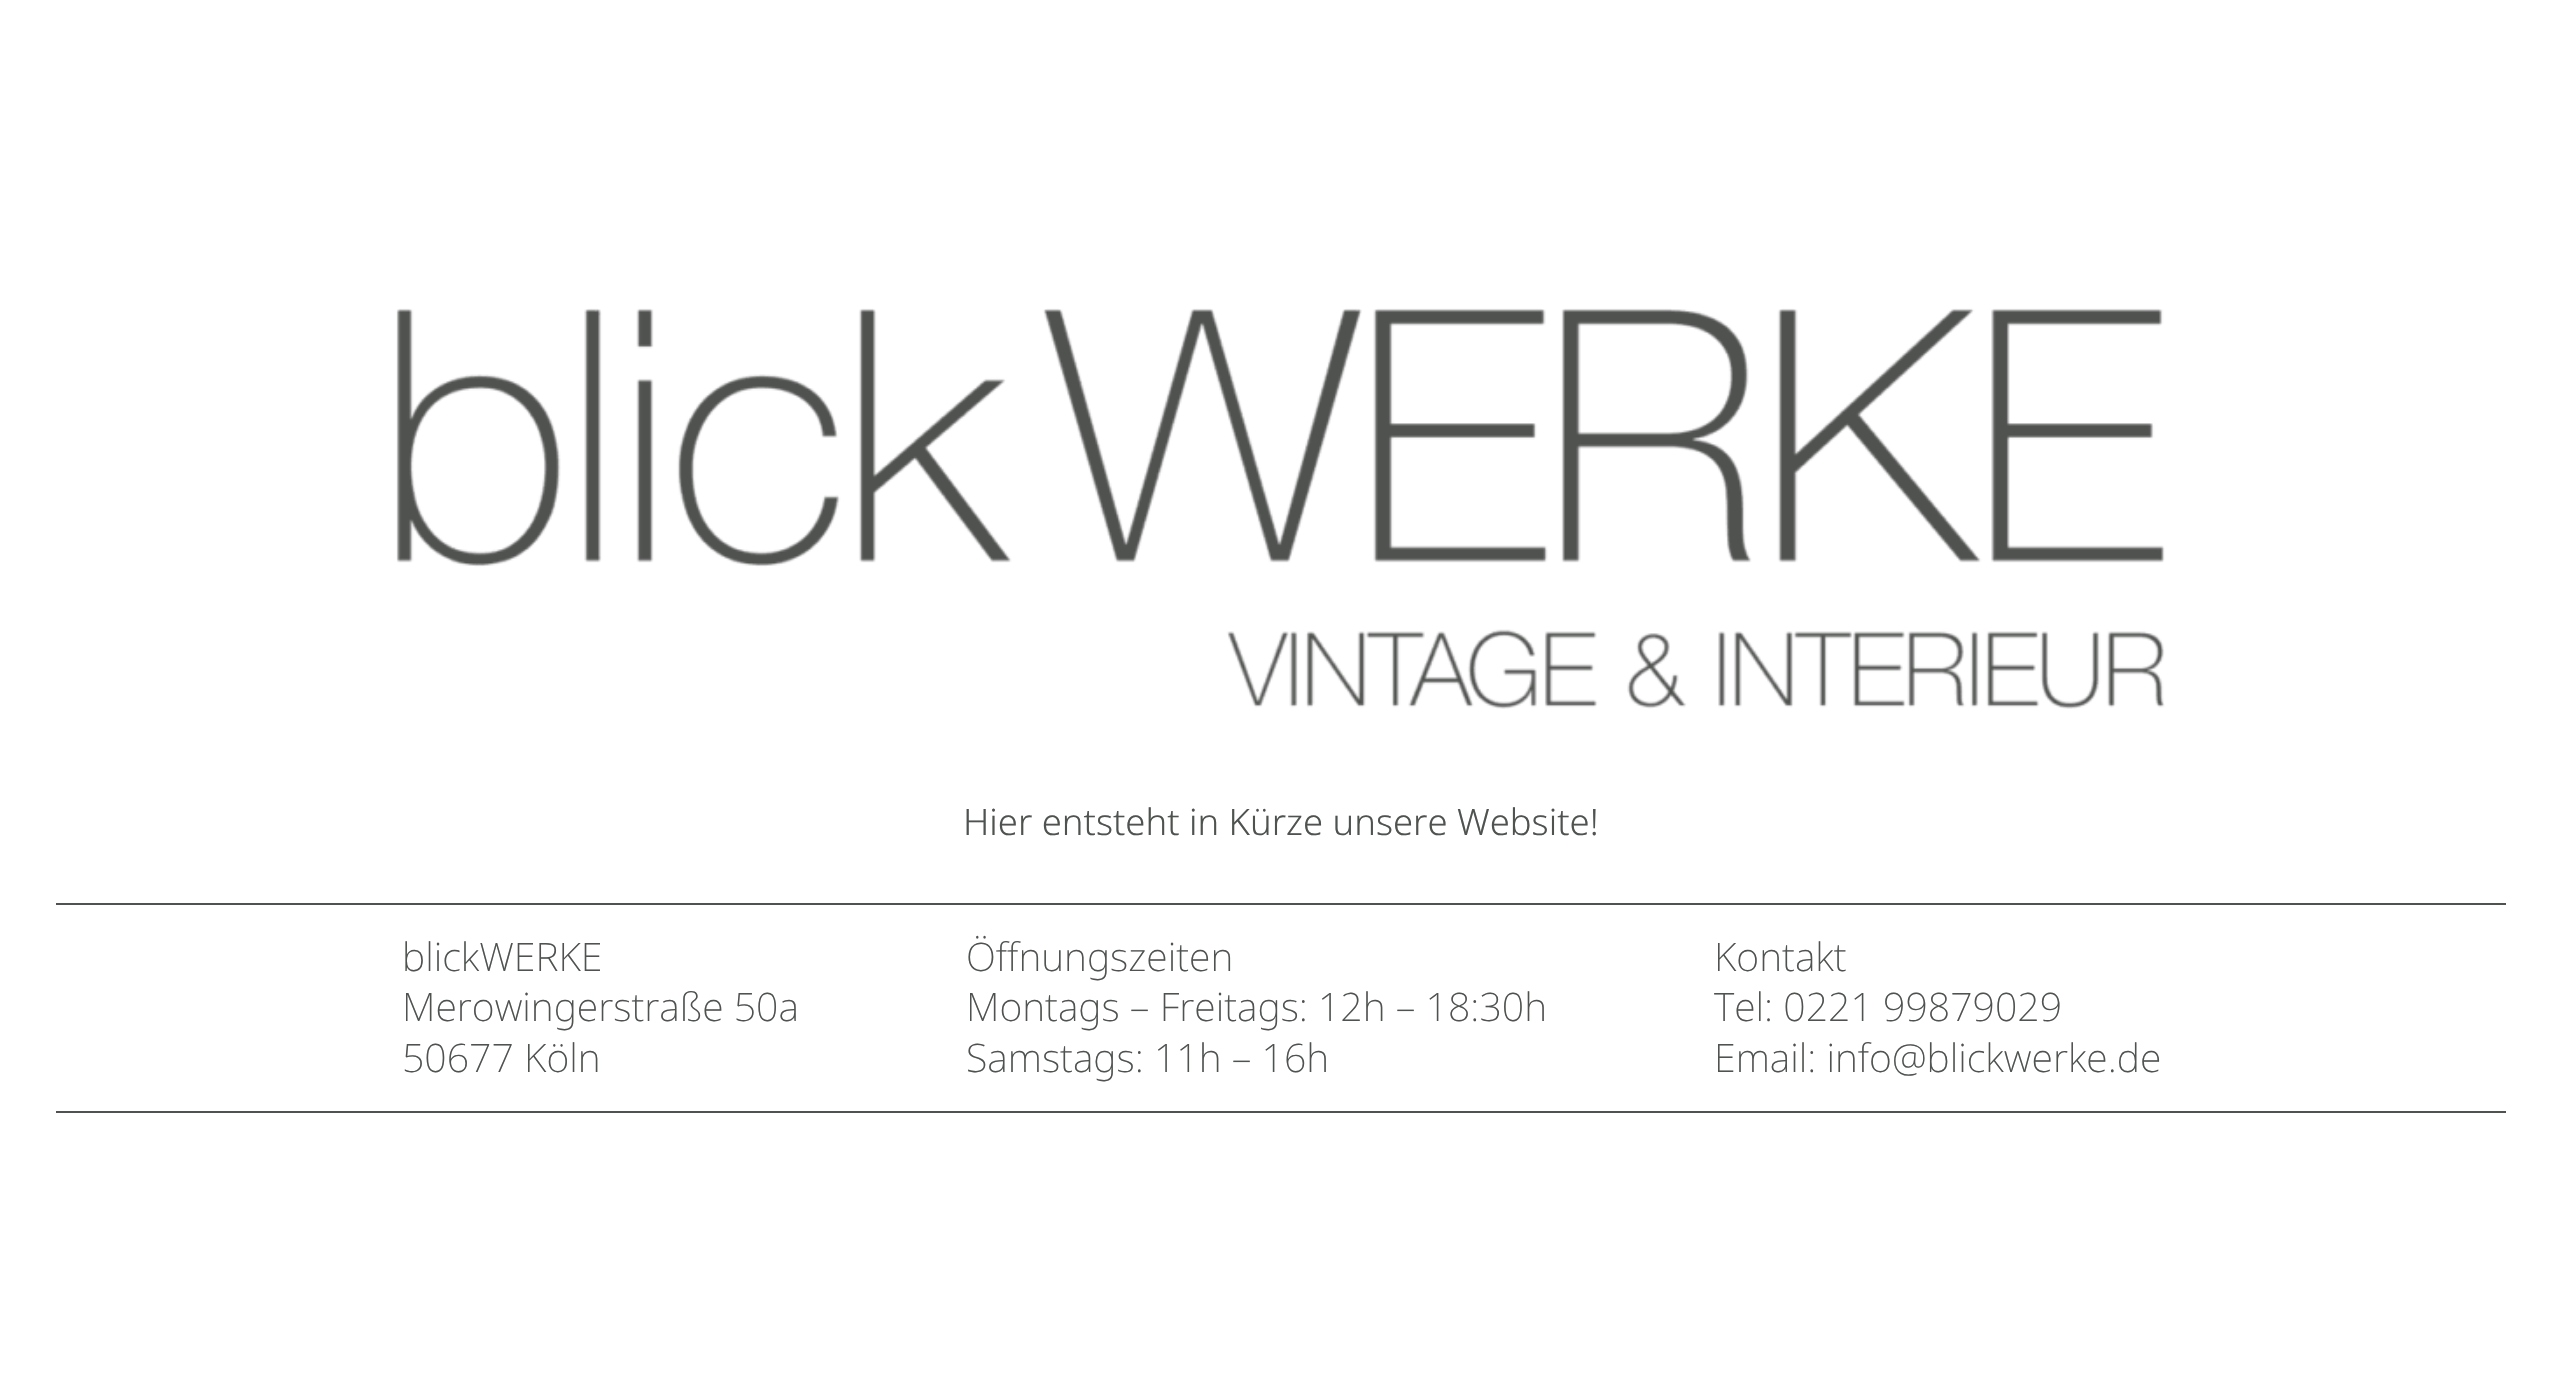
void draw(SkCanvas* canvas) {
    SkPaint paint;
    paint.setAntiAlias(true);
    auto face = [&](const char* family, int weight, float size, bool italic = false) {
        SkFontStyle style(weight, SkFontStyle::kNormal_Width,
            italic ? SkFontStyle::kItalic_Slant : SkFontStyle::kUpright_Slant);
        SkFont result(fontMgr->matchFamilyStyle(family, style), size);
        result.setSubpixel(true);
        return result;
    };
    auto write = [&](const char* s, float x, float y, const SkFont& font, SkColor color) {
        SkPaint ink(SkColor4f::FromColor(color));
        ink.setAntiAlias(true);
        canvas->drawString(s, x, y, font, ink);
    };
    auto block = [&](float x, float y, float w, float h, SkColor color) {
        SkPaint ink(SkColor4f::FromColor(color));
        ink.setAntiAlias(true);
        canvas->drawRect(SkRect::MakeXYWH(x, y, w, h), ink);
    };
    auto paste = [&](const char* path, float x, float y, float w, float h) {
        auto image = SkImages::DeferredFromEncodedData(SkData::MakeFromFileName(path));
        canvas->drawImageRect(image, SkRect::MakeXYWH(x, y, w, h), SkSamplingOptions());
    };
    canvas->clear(SK_ColorWHITE);
    paste("pic1.png", 396, 308, 1769, 401);
    auto kFont1 = face("Noto Sans", 300, 36.4f);
    write("Hier entsteht in Kürze unsere Website!", 963, 835, kFont1, SkColorSetRGB(79, 83, 80));
    block(56, 903, 2450, 2, SkColorSetRGB(79, 83, 80));
    block(56, 1111, 2450, 2, SkColorSetRGB(79, 83, 80));
    auto kFont2 = face("Noto Sans", 200, 39.25f);
    write("blickWERKE", 402, 971, kFont2, SkColorSetRGB(79, 83, 80));
    write("Merowingerstraße 50a", 402, 1021, kFont2, SkColorSetRGB(79, 83, 80));
    write("50677 Köln", 402, 1072, kFont2, SkColorSetRGB(79, 83, 80));
    write("Öffnungszeiten", 966, 971, kFont2, SkColorSetRGB(79, 83, 80));
    write("Montags – Freitags: 12h – 18:30h", 966, 1021, kFont2, SkColorSetRGB(79, 83, 80));
    write("Samstags: 11h – 16h", 966, 1072, kFont2, SkColorSetRGB(79, 83, 80));
    write("Kontakt", 1714, 971, kFont2, SkColorSetRGB(79, 83, 80));
    write("Tel: 0221 99879029", 1714, 1021, kFont2, SkColorSetRGB(79, 83, 80));
    write("Email: info@blickwerke.de", 1714, 1072, kFont2, SkColorSetRGB(79, 83, 80));
}
